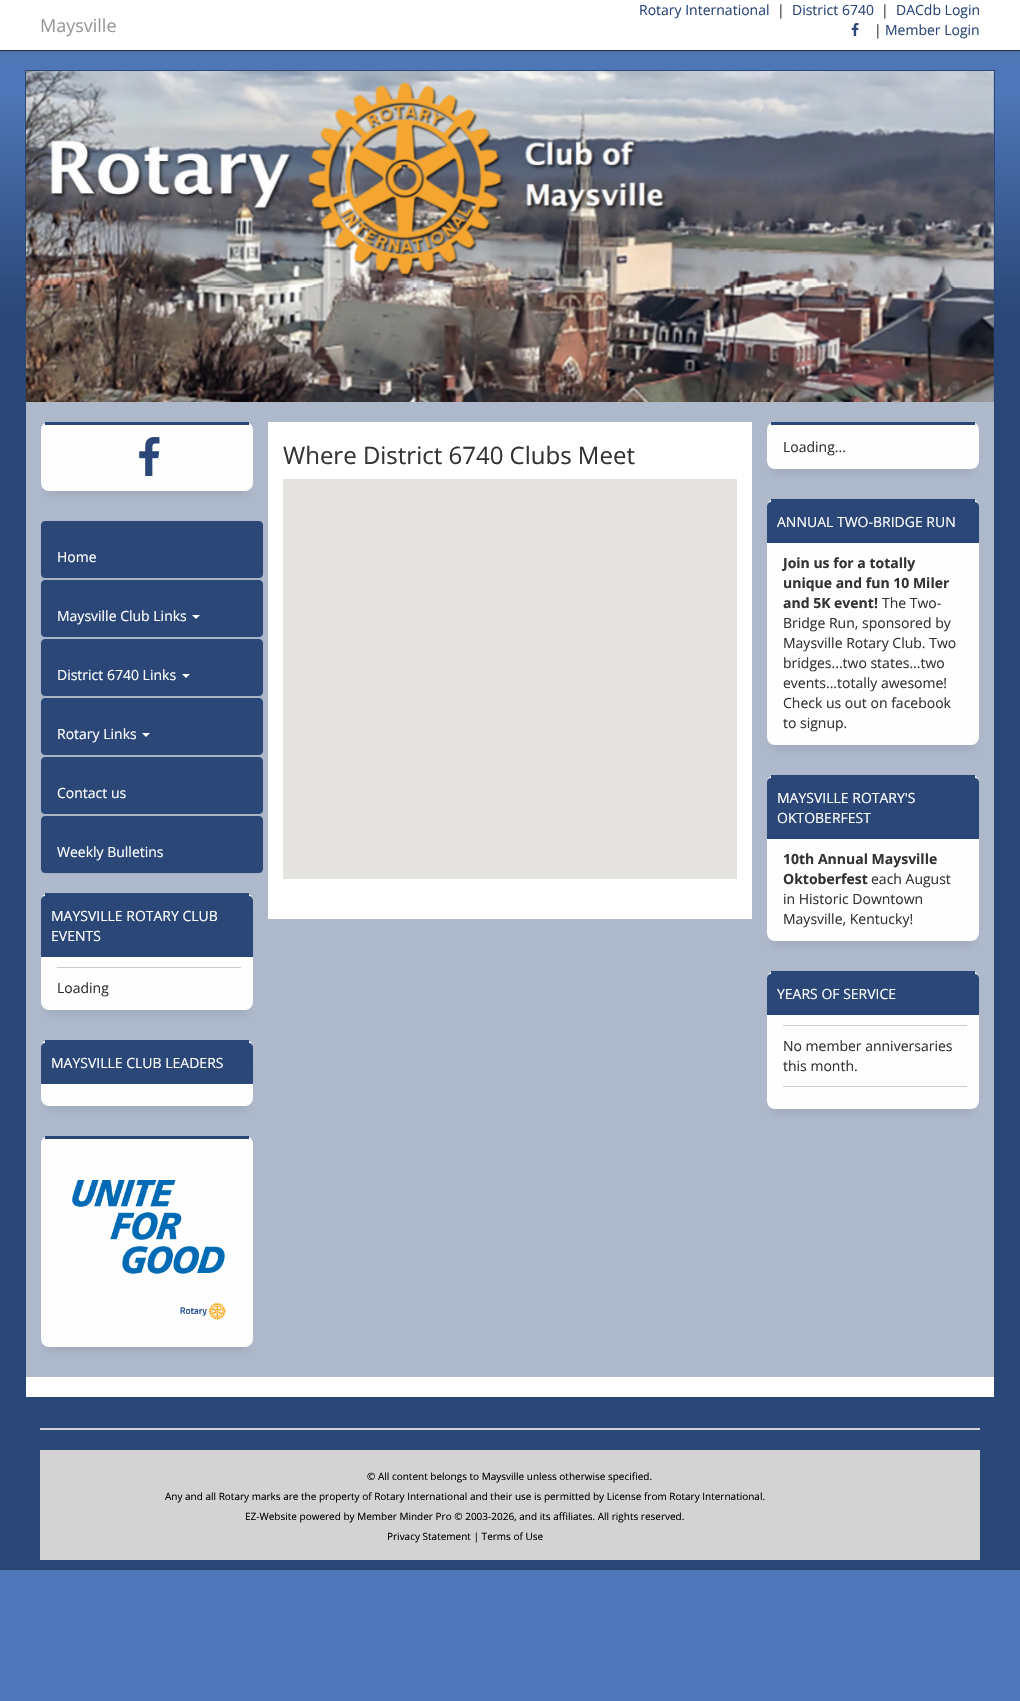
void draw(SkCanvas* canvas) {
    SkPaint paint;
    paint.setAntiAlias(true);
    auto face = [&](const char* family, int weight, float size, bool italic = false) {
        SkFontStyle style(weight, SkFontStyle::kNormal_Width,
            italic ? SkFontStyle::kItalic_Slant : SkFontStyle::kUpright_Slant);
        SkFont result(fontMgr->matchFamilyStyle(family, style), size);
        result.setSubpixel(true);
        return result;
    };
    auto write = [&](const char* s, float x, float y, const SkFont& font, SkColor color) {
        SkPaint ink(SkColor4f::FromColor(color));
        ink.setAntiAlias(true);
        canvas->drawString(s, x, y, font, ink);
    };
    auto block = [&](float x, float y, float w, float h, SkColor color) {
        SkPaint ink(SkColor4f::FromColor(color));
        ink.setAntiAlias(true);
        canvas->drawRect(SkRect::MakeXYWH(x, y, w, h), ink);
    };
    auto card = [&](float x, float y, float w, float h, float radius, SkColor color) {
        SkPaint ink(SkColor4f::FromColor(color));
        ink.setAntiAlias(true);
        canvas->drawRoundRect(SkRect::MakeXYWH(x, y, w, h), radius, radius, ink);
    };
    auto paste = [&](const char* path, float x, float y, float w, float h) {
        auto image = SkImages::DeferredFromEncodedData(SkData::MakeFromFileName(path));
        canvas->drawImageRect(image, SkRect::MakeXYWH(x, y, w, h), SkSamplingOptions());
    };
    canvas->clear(SkColorSetRGB(79, 118, 182));
    {
        const SkColor colors[] = {SkColorSetRGB(79, 118, 182), SkColorSetRGB(42, 71, 119)};
        const float stops[] = {0.06f, 0.2f};
        const SkPoint ends[] = {{510, 0}, {510, 1570}};
        paint.setShader(SkGradientShader::MakeLinear(ends, colors, stops, 2, SkTileMode::kClamp));
        paint.setAlpha(255);
    }
    canvas->drawRect(SkRect::MakeXYWH(0, 103, 1020, 1467), paint);
    paint.setShader(nullptr);
    paint.setColor(SkColorSetARGB(18, 0, 0, 0));
    paint.setMaskFilter(SkMaskFilter::MakeBlur(kNormal_SkBlurStyle, 2.5f));
    canvas->drawRect(SkRect::MakeXYWH(0, 1, 1020, 51), paint);
    paint.setMaskFilter(nullptr);
    block(0, 0, 1020, 50, SK_ColorWHITE);
    block(0, 50, 1020, 1, SkColorSetRGB(36, 46, 56));
    auto kFont1 = face("Open Sans", 400, 14);
    write("Rotary International", 639, 15, kFont1, SkColorSetRGB(42, 71, 119));
    write("|", 777, 15, kFont1, SkColorSetRGB(51, 51, 51));
    write("District 6740", 792, 15, kFont1, SkColorSetRGB(42, 71, 119));
    write("|", 881, 15, kFont1, SkColorSetRGB(51, 51, 51));
    write("DACdb Login", 896, 15, kFont1, SkColorSetRGB(42, 71, 119));
    auto kFont2 = face("Open Sans", 400, 18);
    write("Maysville", 40, 32, kFont2, SkColorSetRGB(153, 153, 153));
    paste("pic1.png", 851, 23, 8, 13);
    write("|", 874, 35, kFont1, SkColorSetRGB(51, 51, 51));
    write("Member Login", 885, 35, kFont1, SkColorSetRGB(42, 71, 119));
    paint.setStyle(SkPaint::kStroke_Style);
    paint.setStrokeWidth(1);
    paint.setColor(SkColorSetRGB(42, 71, 119));
    canvas->drawRect(SkRect::MakeXYWH(25.5f, 70.5f, 969, 1327), paint);
    paste("pic2.png", 26, 71, 968, 331);
    block(26, 402, 968, 975, SkColorSetRGB(174, 185, 204));
    block(268, 422, 484, 497, SK_ColorWHITE);
    auto kFont3 = face("Open Sans", 400, 24);
    write("Where District 6740 Clubs Meet", 283, 464, kFont3, SkColorSetRGB(51, 51, 51));
    block(283, 479, 454, 400, SkColorSetRGB(229, 227, 223));
    paint.setStyle(SkPaint::kFill_Style);
    paint.setColor(SkColorSetARGB(20, 0, 0, 0));
    paint.setMaskFilter(SkMaskFilter::MakeBlur(kNormal_SkBlurStyle, 5));
    canvas->drawRoundRect(SkRect::MakeXYWH(772, 437, 202, 37), 3, 3, paint);
    paint.setMaskFilter(nullptr);
    card(767, 422, 212, 47, 8, SkColorSetRGB(254, 254, 254));
    block(771, 422, 204, 3, SkColorSetRGB(42, 71, 119));
    write("Loading...", 783, 452, kFont1, SkColorSetRGB(51, 51, 51));
    paint.setMaskFilter(SkMaskFilter::MakeBlur(kNormal_SkBlurStyle, 5));
    canvas->drawRoundRect(SkRect::MakeXYWH(772, 514, 202, 236), 3, 3, paint);
    paint.setMaskFilter(nullptr);
    card(767, 499, 212, 246, 8, SkColorSetRGB(254, 254, 254));
    block(771, 499, 204, 3, SkColorSetRGB(42, 71, 119));
    paint.setColor(SkColorSetRGB(42, 71, 119));
    canvas->drawPath(SkPathBuilder().moveTo(771, 502).lineTo(975, 502).cubicTo(977, 502, 979, 504, 979, 506).lineTo(979, 543).lineTo(767, 543).lineTo(767, 506).cubicTo(767, 504, 769, 502, 771, 502).close().detach(), paint);
    write("ANNUAL TWO-BRIDGE RUN", 777, 527, kFont1, SK_ColorWHITE);
    auto kFont4 = face("Open Sans", 700, 14);
    write("Join us for a totally", 783, 568, kFont4, SkColorSetRGB(51, 51, 51));
    write("unique and fun 10 Miler", 783, 588, kFont4, SkColorSetRGB(51, 51, 51));
    write("and 5K event!", 783, 608, kFont4, SkColorSetRGB(51, 51, 51));
    write("The Two-", 882, 608, kFont1, SkColorSetRGB(51, 51, 51));
    write("Bridge Run, sponsored by", 783, 628, kFont1, SkColorSetRGB(51, 51, 51));
    write("Maysville Rotary Club. Two", 783, 648, kFont1, SkColorSetRGB(51, 51, 51));
    write("bridges...two states...two", 783, 668, kFont1, SkColorSetRGB(51, 51, 51));
    write("events...totally awesome!", 783, 688, kFont1, SkColorSetRGB(51, 51, 51));
    write("Check us out on facebook", 783, 708, kFont1, SkColorSetRGB(51, 51, 51));
    write("to signup.", 783, 728, kFont1, SkColorSetRGB(51, 51, 51));
    paint.setColor(SkColorSetARGB(20, 0, 0, 0));
    paint.setMaskFilter(SkMaskFilter::MakeBlur(kNormal_SkBlurStyle, 5));
    canvas->drawRoundRect(SkRect::MakeXYWH(772, 790, 202, 156), 3, 3, paint);
    paint.setMaskFilter(nullptr);
    card(767, 775, 212, 166, 8, SkColorSetRGB(254, 254, 254));
    block(771, 775, 204, 3, SkColorSetRGB(42, 71, 119));
    paint.setColor(SkColorSetRGB(42, 71, 119));
    canvas->drawPath(SkPathBuilder().moveTo(771, 778).lineTo(975, 778).cubicTo(977, 778, 979, 780, 979, 782).lineTo(979, 839).lineTo(767, 839).lineTo(767, 782).cubicTo(767, 780, 769, 778, 771, 778).close().detach(), paint);
    write("MAYSVILLE ROTARY'S", 777, 803, kFont1, SK_ColorWHITE);
    write("OKTOBERFEST", 777, 823, kFont1, SK_ColorWHITE);
    write("10th Annual Maysville", 783, 864, kFont4, SkColorSetRGB(51, 51, 51));
    write("Oktoberfest", 783, 884, kFont4, SkColorSetRGB(51, 51, 51));
    write("each August", 871, 884, kFont1, SkColorSetRGB(51, 51, 51));
    write("in Historic Downtown", 783, 904, kFont1, SkColorSetRGB(51, 51, 51));
    write("Maysville, Kentucky!", 783, 924, kFont1, SkColorSetRGB(51, 51, 51));
    paint.setColor(SkColorSetARGB(20, 0, 0, 0));
    paint.setMaskFilter(SkMaskFilter::MakeBlur(kNormal_SkBlurStyle, 5));
    canvas->drawRoundRect(SkRect::MakeXYWH(772, 986, 202, 128), 3, 3, paint);
    paint.setMaskFilter(nullptr);
    card(767, 971, 212, 138, 8, SkColorSetRGB(254, 254, 254));
    block(771, 971, 204, 3, SkColorSetRGB(42, 71, 119));
    paint.setColor(SkColorSetRGB(42, 71, 119));
    canvas->drawPath(SkPathBuilder().moveTo(771, 974).lineTo(975, 974).cubicTo(977, 974, 979, 976, 979, 978).lineTo(979, 1015).lineTo(767, 1015).lineTo(767, 978).cubicTo(767, 976, 769, 974, 771, 974).close().detach(), paint);
    write("YEARS OF SERVICE", 777, 999, kFont1, SK_ColorWHITE);
    block(783, 1025, 184, 1, SkColorSetRGB(204, 204, 204));
    write("No member anniversaries", 783, 1051, kFont1, SkColorSetRGB(51, 51, 51));
    write("this month.", 783, 1071, kFont1, SkColorSetRGB(51, 51, 51));
    block(783, 1086, 184, 1, SkColorSetRGB(204, 204, 204));
    paint.setColor(SkColorSetARGB(20, 0, 0, 0));
    paint.setMaskFilter(SkMaskFilter::MakeBlur(kNormal_SkBlurStyle, 5));
    canvas->drawRoundRect(SkRect::MakeXYWH(46, 437, 202, 59), 3, 3, paint);
    paint.setMaskFilter(nullptr);
    card(41, 422, 212, 69, 8, SkColorSetRGB(254, 254, 254));
    block(45, 422, 204, 3, SkColorSetRGB(42, 71, 119));
    paste("pic3.png", 139, 437, 21, 39);
    paint.setColor(SkColorSetARGB(13, 0, 0, 0));
    paint.setMaskFilter(SkMaskFilter::MakeBlur(kNormal_SkBlurStyle, 1));
    canvas->drawRoundRect(SkRect::MakeXYWH(41, 522, 222, 57), 4, 4, paint);
    paint.setMaskFilter(nullptr);
    paint.setColor(SkColorSetRGB(42, 71, 119));
    canvas->drawRoundRect(SkRect::MakeXYWH(41.5f, 521.5f, 221, 56), 3.5f, 3.5f, paint);
    paint.setStyle(SkPaint::kStroke_Style);
    canvas->drawRoundRect(SkRect::MakeXYWH(41.5f, 521.5f, 221, 56), 3.5f, 3.5f, paint);
    write("Home", 57, 562, kFont1, SK_ColorWHITE);
    paint.setStyle(SkPaint::kFill_Style);
    paint.setColor(SkColorSetARGB(13, 0, 0, 0));
    paint.setMaskFilter(SkMaskFilter::MakeBlur(kNormal_SkBlurStyle, 1));
    canvas->drawRoundRect(SkRect::MakeXYWH(41, 581, 222, 57), 4, 4, paint);
    paint.setMaskFilter(nullptr);
    paint.setColor(SkColorSetRGB(42, 71, 119));
    canvas->drawRoundRect(SkRect::MakeXYWH(41.5f, 580.5f, 221, 56), 3.5f, 3.5f, paint);
    paint.setStyle(SkPaint::kStroke_Style);
    canvas->drawRoundRect(SkRect::MakeXYWH(41.5f, 580.5f, 221, 56), 3.5f, 3.5f, paint);
    write("Maysville Club Links", 57, 621, kFont1, SK_ColorWHITE);
    paint.setStyle(SkPaint::kFill_Style);
    paint.setColor(SK_ColorWHITE);
    canvas->drawPath(SkPathBuilder().moveTo(192, 615).lineTo(200, 615).lineTo(196, 619).close().detach(), paint);
    paint.setColor(SkColorSetARGB(13, 0, 0, 0));
    paint.setMaskFilter(SkMaskFilter::MakeBlur(kNormal_SkBlurStyle, 1));
    canvas->drawRoundRect(SkRect::MakeXYWH(41, 640, 222, 57), 4, 4, paint);
    paint.setMaskFilter(nullptr);
    paint.setColor(SkColorSetRGB(42, 71, 119));
    canvas->drawRoundRect(SkRect::MakeXYWH(41.5f, 639.5f, 221, 56), 3.5f, 3.5f, paint);
    paint.setStyle(SkPaint::kStroke_Style);
    canvas->drawRoundRect(SkRect::MakeXYWH(41.5f, 639.5f, 221, 56), 3.5f, 3.5f, paint);
    write("District 6740 Links", 57, 680, kFont1, SK_ColorWHITE);
    paint.setStyle(SkPaint::kFill_Style);
    paint.setColor(SK_ColorWHITE);
    canvas->drawPath(SkPathBuilder().moveTo(182, 674).lineTo(190, 674).lineTo(186, 678).close().detach(), paint);
    paint.setColor(SkColorSetARGB(13, 0, 0, 0));
    paint.setMaskFilter(SkMaskFilter::MakeBlur(kNormal_SkBlurStyle, 1));
    canvas->drawRoundRect(SkRect::MakeXYWH(41, 699, 222, 57), 4, 4, paint);
    paint.setMaskFilter(nullptr);
    paint.setColor(SkColorSetRGB(42, 71, 119));
    canvas->drawRoundRect(SkRect::MakeXYWH(41.5f, 698.5f, 221, 56), 3.5f, 3.5f, paint);
    paint.setStyle(SkPaint::kStroke_Style);
    canvas->drawRoundRect(SkRect::MakeXYWH(41.5f, 698.5f, 221, 56), 3.5f, 3.5f, paint);
    write("Rotary Links", 57, 739, kFont1, SK_ColorWHITE);
    paint.setStyle(SkPaint::kFill_Style);
    paint.setColor(SK_ColorWHITE);
    canvas->drawPath(SkPathBuilder().moveTo(142, 733).lineTo(150, 733).lineTo(146, 737).close().detach(), paint);
    paint.setColor(SkColorSetARGB(13, 0, 0, 0));
    paint.setMaskFilter(SkMaskFilter::MakeBlur(kNormal_SkBlurStyle, 1));
    canvas->drawRoundRect(SkRect::MakeXYWH(41, 758, 222, 57), 4, 4, paint);
    paint.setMaskFilter(nullptr);
    paint.setColor(SkColorSetRGB(42, 71, 119));
    canvas->drawRoundRect(SkRect::MakeXYWH(41.5f, 757.5f, 221, 56), 3.5f, 3.5f, paint);
    paint.setStyle(SkPaint::kStroke_Style);
    canvas->drawRoundRect(SkRect::MakeXYWH(41.5f, 757.5f, 221, 56), 3.5f, 3.5f, paint);
    write("Contact us", 57, 798, kFont1, SK_ColorWHITE);
    paint.setStyle(SkPaint::kFill_Style);
    paint.setColor(SkColorSetARGB(13, 0, 0, 0));
    paint.setMaskFilter(SkMaskFilter::MakeBlur(kNormal_SkBlurStyle, 1));
    canvas->drawRoundRect(SkRect::MakeXYWH(41, 817, 222, 57), 4, 4, paint);
    paint.setMaskFilter(nullptr);
    paint.setColor(SkColorSetRGB(42, 71, 119));
    canvas->drawRoundRect(SkRect::MakeXYWH(41.5f, 816.5f, 221, 56), 3.5f, 3.5f, paint);
    paint.setStyle(SkPaint::kStroke_Style);
    canvas->drawRoundRect(SkRect::MakeXYWH(41.5f, 816.5f, 221, 56), 3.5f, 3.5f, paint);
    write("Weekly Bulletins", 57, 857, kFont1, SK_ColorWHITE);
    paint.setStyle(SkPaint::kFill_Style);
    paint.setColor(SkColorSetARGB(20, 0, 0, 0));
    paint.setMaskFilter(SkMaskFilter::MakeBlur(kNormal_SkBlurStyle, 5));
    canvas->drawRoundRect(SkRect::MakeXYWH(46, 908, 202, 107), 3, 3, paint);
    paint.setMaskFilter(nullptr);
    card(41, 893, 212, 117, 8, SkColorSetRGB(254, 254, 254));
    block(45, 893, 204, 3, SkColorSetRGB(42, 71, 119));
    paint.setColor(SkColorSetRGB(42, 71, 119));
    canvas->drawPath(SkPathBuilder().moveTo(45, 896).lineTo(249, 896).cubicTo(251, 896, 253, 898, 253, 900).lineTo(253, 957).lineTo(41, 957).lineTo(41, 900).cubicTo(41, 898, 43, 896, 45, 896).close().detach(), paint);
    write("MAYSVILLE ROTARY CLUB", 51, 921, kFont1, SK_ColorWHITE);
    write("EVENTS", 51, 941, kFont1, SK_ColorWHITE);
    block(57, 967, 184, 1, SkColorSetRGB(204, 204, 204));
    write("Loading", 57, 993, kFont1, SkColorSetRGB(51, 51, 51));
    paint.setColor(SkColorSetARGB(20, 0, 0, 0));
    paint.setMaskFilter(SkMaskFilter::MakeBlur(kNormal_SkBlurStyle, 5));
    canvas->drawRoundRect(SkRect::MakeXYWH(46, 1055, 202, 56), 3, 3, paint);
    paint.setMaskFilter(nullptr);
    card(41, 1040, 212, 66, 8, SkColorSetRGB(254, 254, 254));
    block(45, 1040, 204, 3, SkColorSetRGB(42, 71, 119));
    paint.setColor(SkColorSetRGB(42, 71, 119));
    canvas->drawPath(SkPathBuilder().moveTo(45, 1043).lineTo(249, 1043).cubicTo(251, 1043, 253, 1045, 253, 1047).lineTo(253, 1084).lineTo(41, 1084).lineTo(41, 1047).cubicTo(41, 1045, 43, 1043, 45, 1043).close().detach(), paint);
    write("MAYSVILLE CLUB LEADERS", 51, 1068, kFont1, SK_ColorWHITE);
    paint.setColor(SkColorSetARGB(20, 0, 0, 0));
    paint.setMaskFilter(SkMaskFilter::MakeBlur(kNormal_SkBlurStyle, 5));
    canvas->drawRoundRect(SkRect::MakeXYWH(46, 1151, 202, 201), 3, 3, paint);
    paint.setMaskFilter(nullptr);
    card(41, 1136, 212, 211, 8, SkColorSetRGB(254, 254, 254));
    block(45, 1136, 204, 3, SkColorSetRGB(42, 71, 119));
    paste("pic4.png", 72, 1180, 154, 140);
    block(26, 1377, 968, 20, SK_ColorWHITE);
    block(40, 1428, 940, 2, SkColorSetRGB(211, 211, 211));
    block(40, 1450, 940, 110, SkColorSetRGB(211, 211, 211));
    auto kFont5 = face("Open Sans", 400, 10);
    write("© All content belongs to Maysville unless otherwise specified.", 367, 1480, kFont5, SK_ColorBLACK);
    write("Any and all Rotary marks are the property of Rotary International and their use is permitted by License from Rotary International.", 165, 1500, kFont5, SK_ColorBLACK);
    write("EZ-Website powered by Member Minder Pro © 2003-2026, and its affiliates. All rights reserved.", 245, 1520, kFont5, SK_ColorBLACK);
    write("Privacy Statement | Terms of Use", 387, 1540, kFont5, SK_ColorBLACK);
}
